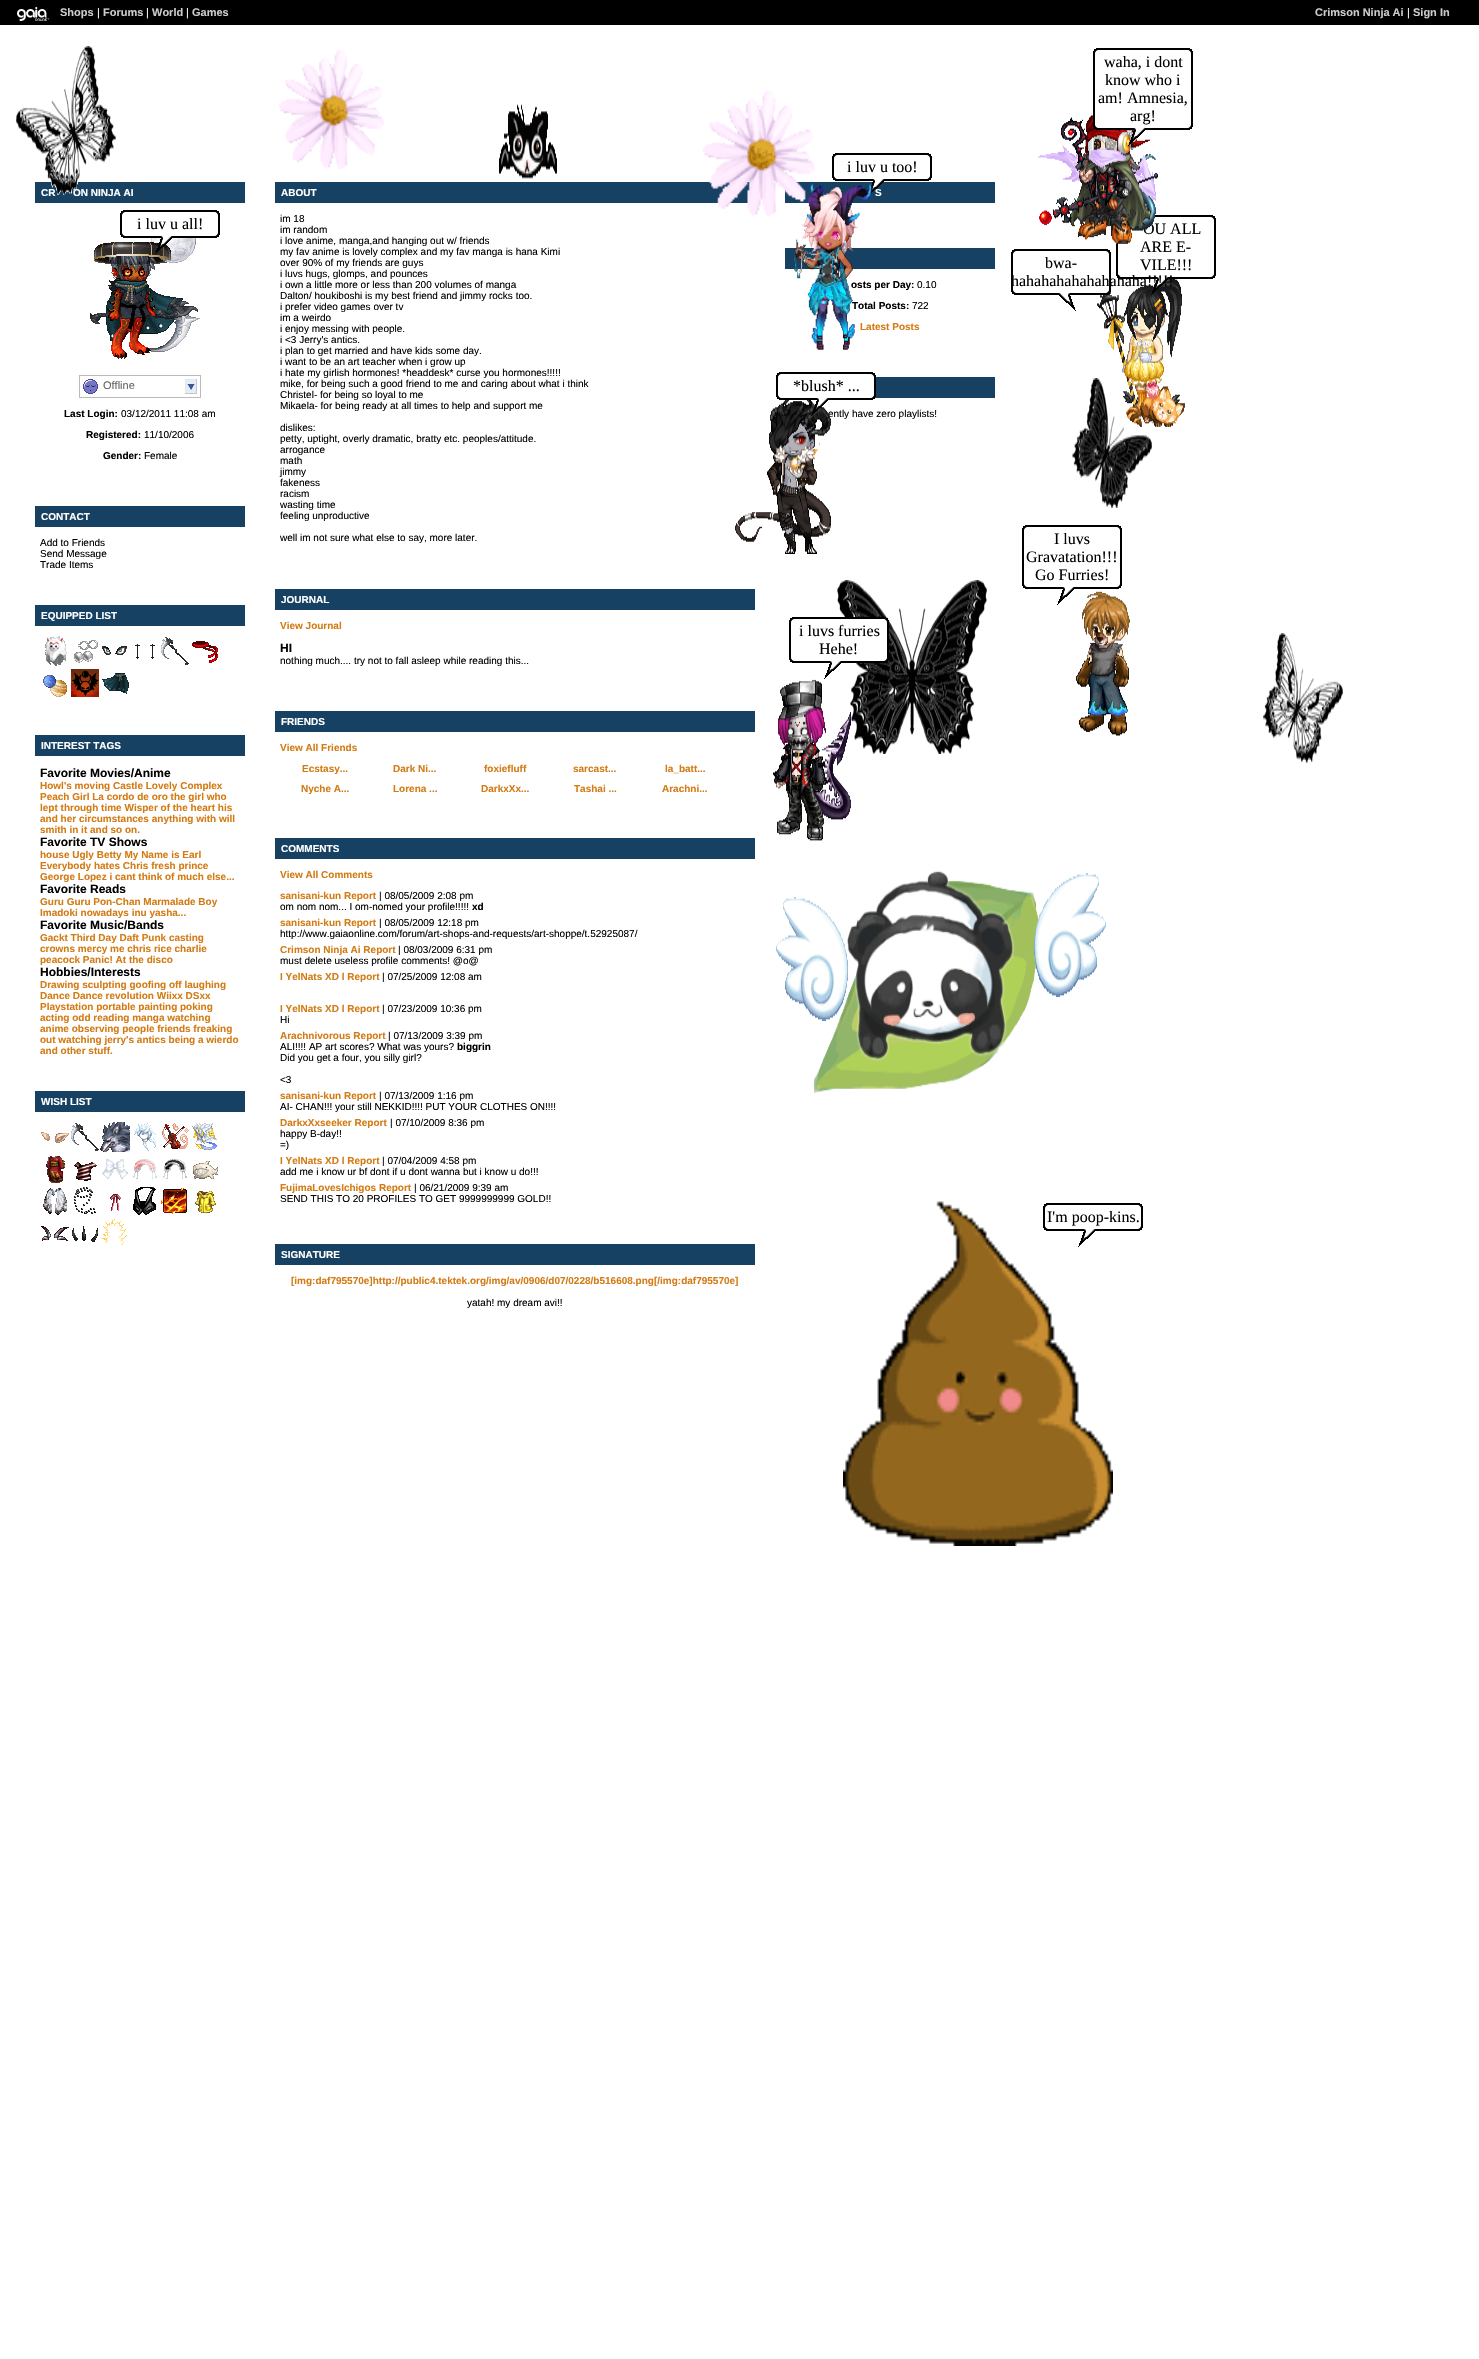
void draw(SkCanvas* canvas) {
    SkPaint paint;
    paint.setAntiAlias(true);
    auto face = [&](const char* family, int weight, float size, bool italic = false) {
        SkFontStyle style(weight, SkFontStyle::kNormal_Width,
            italic ? SkFontStyle::kItalic_Slant : SkFontStyle::kUpright_Slant);
        SkFont result(fontMgr->matchFamilyStyle(family, style), size);
        result.setSubpixel(true);
        return result;
    };
    auto write = [&](const char* s, float x, float y, const SkFont& font, SkColor color) {
        SkPaint ink(SkColor4f::FromColor(color));
        ink.setAntiAlias(true);
        canvas->drawString(s, x, y, font, ink);
    };
    auto block = [&](float x, float y, float w, float h, SkColor color) {
        SkPaint ink(SkColor4f::FromColor(color));
        ink.setAntiAlias(true);
        canvas->drawRect(SkRect::MakeXYWH(x, y, w, h), ink);
    };
    auto paste = [&](const char* path, float x, float y, float w, float h) {
        auto image = SkImages::DeferredFromEncodedData(SkData::MakeFromFileName(path));
        canvas->drawImageRect(image, SkRect::MakeXYWH(x, y, w, h), SkSamplingOptions());
    };
    canvas->clear(SK_ColorWHITE);
    block(0, 0, 1479, 25, SK_ColorBLACK);
    paste("pic1.png", 17, 7, 32, 14);
    auto kFont1 = face("Liberation Sans", 700, 11);
    write("Shops", 60, 16, kFont1, SkColorSetRGB(204, 204, 204));
    auto kFont2 = face("Liberation Sans", 400, 11);
    write("|", 97, 16, kFont2, SK_ColorWHITE);
    write("Forums", 103, 16, kFont1, SkColorSetRGB(204, 204, 204));
    write("|", 146, 16, kFont2, SK_ColorWHITE);
    write("World", 152, 16, kFont1, SkColorSetRGB(204, 204, 204));
    write("|", 186, 16, kFont2, SK_ColorWHITE);
    write("Games", 192, 16, kFont1, SkColorSetRGB(204, 204, 204));
    write("Crimson Ninja Ai", 1315, 16, kFont1, SkColorSetRGB(204, 204, 204));
    write("|", 1407, 16, kFont2, SK_ColorWHITE);
    write("Sign In", 1413, 16, kFont1, SkColorSetRGB(204, 204, 204));
    block(35, 182, 210, 21, SkColorSetRGB(23, 65, 99));
    auto kFont3 = face("Liberation Sans", 700, 10);
    write("CR", 41, 196, kFont3, SK_ColorWHITE);
    write("ON NINJA AI", 73, 196, kFont3, SK_ColorWHITE);
    paste("pic2.png", 16, 46, 100, 149);
    paste("pic3.png", 279, 50, 105, 119);
    paste("pic4.png", 499, 104, 58, 75);
    block(275, 182, 475, 21, SkColorSetRGB(23, 65, 99));
    block(785, 182, 210, 21, SkColorSetRGB(23, 65, 99));
    paste("pic5.png", 703, 91, 112, 125);
    write("S", 875, 196, kFont3, SK_ColorWHITE);
    paste("pic23.png", 832, 176, 100, 18);
    block(785, 248, 210, 21, SkColorSetRGB(23, 65, 99));
    write("osts per Day:", 851, 288, kFont3, SK_ColorBLACK);
    write("Total Posts:", 852, 309, kFont3, SK_ColorBLACK);
    write("Latest Posts", 860, 330, kFont3, SkColorSetRGB(211, 123, 20));
    paste("pic6.png", 794, 183, 78, 167);
    paste("pic25.png", 1154, 215, 62, 5);
    paste("pic26.png", 1116, 220, 100, 54);
    auto kFont4 = face("Liberation Serif", 400, 16);
    write("OU ALL", 1143, 234, kFont4, SK_ColorBLACK);
    write("ARE E-", 1140, 252, kFont4, SK_ColorBLACK);
    paste("pic7.png", 1038, 115, 120, 129);
    paste("pic10.png", 1072, 378, 80, 130);
    paste("pic8.png", 1097, 279, 88, 148);
    auto kFont5 = face("Liberation Sans", 400, 10);
    write("ently have zero playlists!", 828, 417, kFont5, SK_ColorBLACK);
    paste("pic9.png", 735, 400, 96, 154);
    paste("pic12.png", 837, 580, 150, 174);
    paste("pic11.png", 773, 679, 78, 162);
    paste("pic13.png", 1076, 591, 54, 145);
    paste("pic14.png", 1263, 633, 80, 130);
    paste("pic16.png", 814, 870, 225, 223);
    paste("pic15.png", 776, 897, 72, 124);
    paste("pic17.png", 1034, 873, 72, 124);
    paste("pic18.png", 843, 1201, 270, 345);
    paste("pic19.png", 1093, 48, 100, 5);
    paste("pic20.png", 1093, 53, 100, 72);
    write("waha, i dont", 1104, 67, kFont4, SK_ColorBLACK);
    write("know who i", 1105, 85, kFont4, SK_ColorBLACK);
    write("am! Amnesia,", 1098, 103, kFont4, SK_ColorBLACK);
    write("arg!", 1130, 121, kFont4, SK_ColorBLACK);
    paste("pic21.png", 1093, 125, 100, 21);
    paste("pic19.png", 832, 153, 100, 5);
    paste("pic22.png", 832, 158, 100, 18);
    write("i luv u too!", 847, 172, kFont4, SK_ColorBLACK);
    paste("pic19.png", 120, 210, 100, 5);
    paste("pic22.png", 120, 215, 100, 18);
    write("i luv u all!", 137, 229, kFont4, SK_ColorBLACK);
    paste("pic35.png", 90, 238, 110, 121);
    paste("pic24.png", 120, 233, 100, 21);
    write("VILE!!!", 1140, 270, kFont4, SK_ColorBLACK);
    paste("pic27.png", 1116, 274, 100, 21);
    paste("pic19.png", 1011, 249, 100, 5);
    paste("pic28.png", 1011, 254, 100, 36);
    write("bwa-", 1045, 268, kFont4, SK_ColorBLACK);
    write("hahahahahahahahaha!!!!!", 1011, 286, kFont4, SK_ColorBLACK);
    paste("pic29.png", 1011, 290, 100, 21);
    paste("pic19.png", 776, 372, 100, 5);
    block(875, 377, 120, 21, SkColorSetRGB(23, 65, 99));
    paste("pic22.png", 776, 377, 100, 18);
    write("*blush* ...", 793, 391, kFont4, SK_ColorBLACK);
    paste("pic30.png", 776, 395, 100, 21);
    paste("pic19.png", 1022, 525, 100, 5);
    paste("pic26.png", 1022, 530, 100, 54);
    write("I luvs", 1054, 544, kFont4, SK_ColorBLACK);
    write("Gravatation!!!", 1026, 562, kFont4, SK_ColorBLACK);
    write("Go Furries!", 1035, 580, kFont4, SK_ColorBLACK);
    paste("pic31.png", 1022, 584, 100, 21);
    paste("pic32.png", 789, 617, 100, 5);
    paste("pic28.png", 789, 622, 100, 36);
    write("i luvs furries", 799, 636, kFont4, SK_ColorBLACK);
    write("Hehe!", 819, 654, kFont4, SK_ColorBLACK);
    paste("pic33.png", 789, 658, 99, 21);
    paste("pic19.png", 1043, 1203, 100, 5);
    paste("pic22.png", 1043, 1208, 100, 18);
    write("I'm poop-kins.", 1047, 1222, kFont4, SK_ColorBLACK);
    paste("pic34.png", 1043, 1226, 100, 21);
    paint.setStyle(SkPaint::kStroke_Style);
    paint.setStrokeWidth(1);
    paint.setColor(SkColorSetRGB(187, 187, 187));
    canvas->drawRect(SkRect::MakeXYWH(79.5f, 375.5f, 121, 22), paint);
    paste("pic36.png", 185, 379, 12, 15);
    paste("pic37.png", 83, 379, 15, 15);
    write("Offline", 103, 389, kFont2, SkColorSetRGB(102, 102, 102));
    write("Last Login:", 64, 417, kFont3, SK_ColorBLACK);
    write("03/12/2011 11:08 am", 121, 417, kFont5, SK_ColorBLACK);
    write("Registered:", 86, 438, kFont3, SK_ColorBLACK);
    write("11/10/2006", 144, 438, kFont5, SK_ColorBLACK);
    write("Gender:", 103, 459, kFont3, SK_ColorBLACK);
    write("Female", 144, 459, kFont5, SK_ColorBLACK);
    block(35, 506, 210, 21, SkColorSetRGB(23, 65, 99));
    write("CONTACT", 41, 520, kFont3, SK_ColorWHITE);
    write("Add to Friends", 40, 546, kFont5, SK_ColorBLACK);
    write("Send Message", 40, 557, kFont5, SK_ColorBLACK);
    write("Trade Items", 40, 568, kFont5, SK_ColorBLACK);
    block(35, 605, 210, 21, SkColorSetRGB(23, 65, 99));
    write("EQUIPPED LIST", 41, 619, kFont3, SK_ColorWHITE);
    paste("pic38.png", 45, 636, 22, 30);
    paste("pic39.png", 74, 640, 24, 23);
    paste("pic40.png", 102, 646, 25, 9);
    paste("pic41.png", 135, 644, 20, 15);
    paste("pic42.png", 161, 637, 28, 28);
    paste("pic43.png", 192, 641, 26, 22);
    paste("pic44.png", 43, 675, 24, 22);
    paste("pic45.png", 71, 669, 28, 28);
    paste("pic46.png", 102, 673, 27, 21);
    block(35, 735, 210, 21, SkColorSetRGB(23, 65, 99));
    write("INTEREST TAGS", 41, 749, kFont3, SK_ColorWHITE);
    auto kFont6 = face("Liberation Sans", 700, 12);
    write("Favorite Movies/Anime", 40, 777, kFont6, SK_ColorBLACK);
    write("Howl's moving Castle Lovely Complex", 40, 789, kFont3, SkColorSetRGB(211, 123, 20));
    write("Peach Girl La cordo de oro the girl who", 40, 800, kFont3, SkColorSetRGB(211, 123, 20));
    write("lept through time Wisper of the heart his", 40, 811, kFont3, SkColorSetRGB(211, 123, 20));
    write("and her circumstances anything with will", 40, 822, kFont3, SkColorSetRGB(211, 123, 20));
    write("smith in it and so on.", 40, 833, kFont3, SkColorSetRGB(211, 123, 20));
    write("Favorite TV Shows", 40, 846, kFont6, SK_ColorBLACK);
    write("house Ugly Betty My Name is Earl", 40, 858, kFont3, SkColorSetRGB(211, 123, 20));
    write("Everybody hates Chris fresh prince", 40, 869, kFont3, SkColorSetRGB(211, 123, 20));
    write("George Lopez i cant think of much else...", 40, 880, kFont3, SkColorSetRGB(211, 123, 20));
    write("Favorite Reads", 40, 893, kFont6, SK_ColorBLACK);
    write("Guru Guru Pon-Chan Marmalade Boy", 40, 905, kFont3, SkColorSetRGB(211, 123, 20));
    write("Imadoki nowadays inu yasha...", 40, 916, kFont3, SkColorSetRGB(211, 123, 20));
    write("Favorite Music/Bands", 40, 929, kFont6, SK_ColorBLACK);
    write("Gackt Third Day Daft Punk casting", 40, 941, kFont3, SkColorSetRGB(211, 123, 20));
    write("crowns mercy me chris rice charlie", 40, 952, kFont3, SkColorSetRGB(211, 123, 20));
    write("peacock Panic! At the disco", 40, 963, kFont3, SkColorSetRGB(211, 123, 20));
    write("Hobbies/Interests", 40, 976, kFont6, SK_ColorBLACK);
    write("Drawing sculpting goofing off laughing", 40, 988, kFont3, SkColorSetRGB(211, 123, 20));
    write("Dance Dance revolution Wiixx DSxx", 40, 999, kFont3, SkColorSetRGB(211, 123, 20));
    write("Playstation portable painting poking", 40, 1010, kFont3, SkColorSetRGB(211, 123, 20));
    write("acting odd reading manga watching", 40, 1021, kFont3, SkColorSetRGB(211, 123, 20));
    write("anime observing people friends freaking", 40, 1032, kFont3, SkColorSetRGB(211, 123, 20));
    write("out watching jerry's antics being a wierdo", 40, 1043, kFont3, SkColorSetRGB(211, 123, 20));
    write("and other stuff.", 40, 1054, kFont3, SkColorSetRGB(211, 123, 20));
    block(35, 1091, 210, 21, SkColorSetRGB(23, 65, 99));
    write("WISH LIST", 41, 1105, kFont3, SK_ColorWHITE);
    paste("pic47.png", 41, 1132, 28, 11);
    paste("pic42.png", 71, 1123, 28, 28);
    paste("pic48.png", 100, 1122, 30, 30);
    paste("pic49.png", 134, 1123, 22, 28);
    paste("pic50.png", 162, 1123, 27, 26);
    paste("pic51.png", 192, 1123, 25, 27);
    paste("pic52.png", 46, 1156, 19, 27);
    paste("pic53.png", 74, 1162, 23, 19);
    paste("pic54.png", 102, 1159, 26, 20);
    paste("pic55.png", 133, 1159, 24, 20);
    paste("pic56.png", 163, 1159, 24, 20);
    paste("pic57.png", 193, 1161, 25, 18);
    paste("pic58.png", 43, 1188, 24, 27);
    paste("pic59.png", 74, 1187, 22, 27);
    paste("pic60.png", 110, 1194, 11, 17);
    paste("pic61.png", 133, 1187, 23, 28);
    paste("pic62.png", 161, 1188, 26, 26);
    paste("pic63.png", 195, 1191, 21, 22);
    paste("pic64.png", 41, 1226, 28, 15);
    paste("pic65.png", 72, 1226, 26, 16);
    paste("pic66.png", 102, 1219, 25, 26);
    write("ABOUT", 281, 196, kFont3, SK_ColorWHITE);
    write("im 18", 280, 222, kFont5, SK_ColorBLACK);
    write("im random", 280, 233, kFont5, SK_ColorBLACK);
    write("i love anime, manga,and hanging out w/ friends", 280, 244, kFont5, SK_ColorBLACK);
    write("my fav anime is lovely complex and my fav manga is hana Kimi", 280, 255, kFont5, SK_ColorBLACK);
    write("over 90% of my friends are guys", 280, 266, kFont5, SK_ColorBLACK);
    write("i luvs hugs, glomps, and pounces", 280, 277, kFont5, SK_ColorBLACK);
    write("i own a little more or less than 200 volumes of manga", 280, 288, kFont5, SK_ColorBLACK);
    write("Dalton/ houkiboshi is my best friend and jimmy rocks too.", 280, 299, kFont5, SK_ColorBLACK);
    write("i prefer video games over tv", 280, 310, kFont5, SK_ColorBLACK);
    write("im a weirdo", 280, 321, kFont5, SK_ColorBLACK);
    write("i enjoy messing with people.", 280, 332, kFont5, SK_ColorBLACK);
    write("i <3 Jerry's antics.", 280, 343, kFont5, SK_ColorBLACK);
    write("i plan to get married and have kids some day.", 280, 354, kFont5, SK_ColorBLACK);
    write("i want to be an art teacher when i grow up", 280, 365, kFont5, SK_ColorBLACK);
    write("i hate my girlish hormones! *headdesk* curse you hormones!!!!!", 280, 376, kFont5, SK_ColorBLACK);
    write("mike, for being such a good friend to me and caring about what i think", 280, 387, kFont5, SK_ColorBLACK);
    write("Christel- for being so loyal to me", 280, 398, kFont5, SK_ColorBLACK);
    write("Mikaela- for being ready at all times to help and support me", 280, 409, kFont5, SK_ColorBLACK);
    write("dislikes:", 280, 431, kFont5, SK_ColorBLACK);
    write("petty, uptight, overly dramatic, bratty etc. peoples/attitude.", 280, 442, kFont5, SK_ColorBLACK);
    write("arrogance", 280, 453, kFont5, SK_ColorBLACK);
    write("math", 280, 464, kFont5, SK_ColorBLACK);
    write("jimmy", 280, 475, kFont5, SK_ColorBLACK);
    write("fakeness", 280, 486, kFont5, SK_ColorBLACK);
    write("racism", 280, 497, kFont5, SK_ColorBLACK);
    write("wasting time", 280, 508, kFont5, SK_ColorBLACK);
    write("feeling unproductive", 280, 519, kFont5, SK_ColorBLACK);
    write("well im not sure what else to say, more later.", 280, 541, kFont5, SK_ColorBLACK);
    block(275, 589, 480, 21, SkColorSetRGB(23, 65, 99));
    write("JOURNAL", 281, 603, kFont3, SK_ColorWHITE);
    write("View Journal", 280, 629, kFont3, SkColorSetRGB(211, 123, 20));
    write("HI", 280, 652, kFont6, SK_ColorBLACK);
    write("nothing much.... try not to fall asleep while reading this...", 280, 664, kFont5, SK_ColorBLACK);
    block(275, 711, 480, 21, SkColorSetRGB(23, 65, 99));
    write("FRIENDS", 281, 725, kFont3, SK_ColorWHITE);
    write("View All Friends", 280, 751, kFont3, SkColorSetRGB(211, 123, 20));
    write("Ecstasy...", 302, 772, kFont3, SkColorSetRGB(211, 123, 20));
    write("Dark Ni...", 393, 772, kFont3, SkColorSetRGB(211, 123, 20));
    write("foxiefluff", 484, 772, kFont3, SkColorSetRGB(211, 123, 20));
    write("sarcast...", 573, 772, kFont3, SkColorSetRGB(211, 123, 20));
    write("la_batt...", 665, 772, kFont3, SkColorSetRGB(211, 123, 20));
    write("Nyche A...", 301, 792, kFont3, SkColorSetRGB(211, 123, 20));
    write("Lorena ...", 393, 792, kFont3, SkColorSetRGB(211, 123, 20));
    write("DarkxXx...", 481, 792, kFont3, SkColorSetRGB(211, 123, 20));
    write("Tashai ...", 574, 792, kFont3, SkColorSetRGB(211, 123, 20));
    write("Arachni...", 662, 792, kFont3, SkColorSetRGB(211, 123, 20));
    block(275, 838, 480, 21, SkColorSetRGB(23, 65, 99));
    write("COMMENTS", 281, 852, kFont3, SK_ColorWHITE);
    write("View All Comments", 280, 878, kFont3, SkColorSetRGB(211, 123, 20));
    write("sanisani-kun Report", 280, 899, kFont3, SkColorSetRGB(211, 123, 20));
    write("| 08/05/2009 2:08 pm", 379, 899, kFont5, SK_ColorBLACK);
    write("om nom nom... I om-nomed your profile!!!!!", 280, 910, kFont5, SK_ColorBLACK);
    write("xd", 472, 910, kFont3, SK_ColorBLACK);
    write("sanisani-kun Report", 280, 926, kFont3, SkColorSetRGB(211, 123, 20));
    write("| 08/05/2009 12:18 pm", 379, 926, kFont5, SK_ColorBLACK);
    write("http://www.gaiaonline.com/forum/art-shops-and-requests/art-shoppe/t.52925087/", 280, 937, kFont5, SK_ColorBLACK);
    write("Crimson Ninja Ai Report", 280, 953, kFont3, SkColorSetRGB(211, 123, 20));
    write("| 08/03/2009 6:31 pm", 398, 953, kFont5, SK_ColorBLACK);
    write("must delete useless profile comments! @o@", 280, 964, kFont5, SK_ColorBLACK);
    write("I YelNats XD l Report", 280, 980, kFont3, SkColorSetRGB(211, 123, 20));
    write("| 07/25/2009 12:08 am", 382, 980, kFont5, SK_ColorBLACK);
    write("I YelNats XD l Report", 280, 1012, kFont3, SkColorSetRGB(211, 123, 20));
    write("| 07/23/2009 10:36 pm", 382, 1012, kFont5, SK_ColorBLACK);
    write("Hi", 280, 1023, kFont5, SK_ColorBLACK);
    write("Arachnivorous Report", 280, 1039, kFont3, SkColorSetRGB(211, 123, 20));
    write("| 07/13/2009 3:39 pm", 388, 1039, kFont5, SK_ColorBLACK);
    write("ALI!!!! AP art scores? What was yours?", 280, 1050, kFont5, SK_ColorBLACK);
    write("biggrin", 457, 1050, kFont3, SK_ColorBLACK);
    write("Did you get a four, you silly girl?", 280, 1061, kFont5, SK_ColorBLACK);
    write("<3", 280, 1083, kFont5, SK_ColorBLACK);
    write("sanisani-kun Report", 280, 1099, kFont3, SkColorSetRGB(211, 123, 20));
    write("| 07/13/2009 1:16 pm", 379, 1099, kFont5, SK_ColorBLACK);
    write("AI- CHAN!!! your still NEKKID!!!! PUT YOUR CLOTHES ON!!!!", 280, 1110, kFont5, SK_ColorBLACK);
    write("DarkxXxseeker Report", 280, 1126, kFont3, SkColorSetRGB(211, 123, 20));
    write("| 07/10/2009 8:36 pm", 390, 1126, kFont5, SK_ColorBLACK);
    write("happy B-day!!", 280, 1137, kFont5, SK_ColorBLACK);
    write("=)", 280, 1148, kFont5, SK_ColorBLACK);
    write("I YelNats XD l Report", 280, 1164, kFont3, SkColorSetRGB(211, 123, 20));
    write("| 07/04/2009 4:58 pm", 382, 1164, kFont5, SK_ColorBLACK);
    write("add me i know ur bf dont if u dont wanna but i know u do!!!", 280, 1175, kFont5, SK_ColorBLACK);
    write("FujimaLovesIchigos Report", 280, 1191, kFont3, SkColorSetRGB(211, 123, 20));
    write("| 06/21/2009 9:39 am", 414, 1191, kFont5, SK_ColorBLACK);
    write("SEND THIS TO 20 PROFILES TO GET 9999999999 GOLD!!", 280, 1202, kFont5, SK_ColorBLACK);
    block(275, 1244, 480, 21, SkColorSetRGB(23, 65, 99));
    write("SIGNATURE", 281, 1258, kFont3, SK_ColorWHITE);
    write("[img:daf795570e]http://public4.tektek.org/img/av/0906/d07/0228/b516608.png[/img:daf795570e]", 291, 1284, kFont3, SkColorSetRGB(211, 123, 20));
    write("yatah! my dream avi!!", 467, 1306, kFont5, SK_ColorBLACK);
    write("0.10", 917, 288, kFont5, SK_ColorBLACK);
    write("722", 912, 309, kFont5, SK_ColorBLACK);
}
